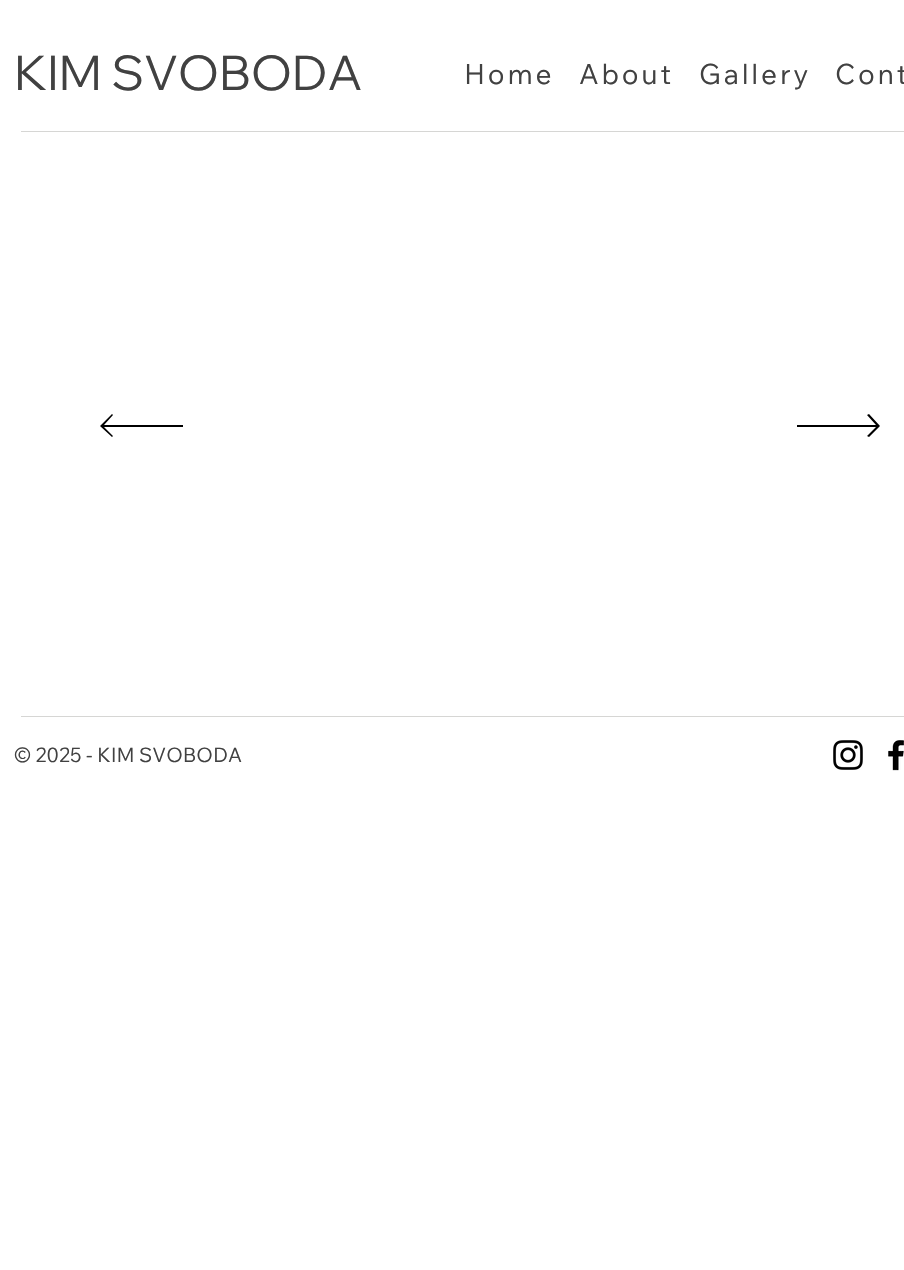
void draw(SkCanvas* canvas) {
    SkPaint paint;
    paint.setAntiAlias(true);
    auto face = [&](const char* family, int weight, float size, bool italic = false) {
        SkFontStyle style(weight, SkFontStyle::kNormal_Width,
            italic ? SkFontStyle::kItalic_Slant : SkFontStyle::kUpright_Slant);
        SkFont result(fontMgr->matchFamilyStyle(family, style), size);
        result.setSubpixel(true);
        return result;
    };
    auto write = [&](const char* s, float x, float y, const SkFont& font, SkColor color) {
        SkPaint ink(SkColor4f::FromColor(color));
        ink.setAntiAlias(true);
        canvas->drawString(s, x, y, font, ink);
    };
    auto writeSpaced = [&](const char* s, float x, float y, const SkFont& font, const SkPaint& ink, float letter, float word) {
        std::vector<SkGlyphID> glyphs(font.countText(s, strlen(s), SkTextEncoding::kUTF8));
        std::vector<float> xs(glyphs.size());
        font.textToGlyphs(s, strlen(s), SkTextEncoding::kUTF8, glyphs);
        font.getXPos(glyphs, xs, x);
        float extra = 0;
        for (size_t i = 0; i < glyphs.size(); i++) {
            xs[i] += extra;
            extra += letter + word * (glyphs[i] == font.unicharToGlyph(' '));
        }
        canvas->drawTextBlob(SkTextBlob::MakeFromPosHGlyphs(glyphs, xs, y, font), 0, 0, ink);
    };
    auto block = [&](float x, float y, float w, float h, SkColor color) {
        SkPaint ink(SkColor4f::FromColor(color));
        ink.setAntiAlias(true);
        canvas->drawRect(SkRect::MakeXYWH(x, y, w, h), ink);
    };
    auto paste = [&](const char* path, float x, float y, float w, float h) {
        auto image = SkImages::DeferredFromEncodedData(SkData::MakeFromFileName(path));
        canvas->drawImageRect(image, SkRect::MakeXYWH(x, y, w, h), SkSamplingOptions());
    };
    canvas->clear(SK_ColorWHITE);
    auto kFont1 = face("Wix Madefor Display", 400, 48);
    write("KIM SVOBODA", 14, 90, kFont1, SkColorSetRGB(65, 65, 65));
    auto kFont2 = face("Wix Madefor Text", 400, 28);
    paint.setColor(SkColorSetRGB(65, 65, 65));
    writeSpaced("Home", 464, 84, kFont2, paint, 2.75f, 0);
    writeSpaced("About", 579, 84, kFont2, paint, 2.75f, 0);
    writeSpaced("Gallery", 699, 84, kFont2, paint, 2.75f, 0);
    writeSpaced("Cont", 835, 84, kFont2, paint, 2.75f, 0);
    block(21, 131, 883, 1, SkColorSetRGB(214, 214, 212));
    paint.setColor(SK_ColorBLACK);
    canvas->drawPath(SkPathBuilder().moveTo(112, 414).lineTo(113, 415).lineTo(104, 425).lineTo(183, 425).lineTo(183, 427).lineTo(104, 427).lineTo(113, 436).lineTo(112, 437).lineTo(100, 426).close().detach(), paint);
    canvas->drawPath(SkPathBuilder().moveTo(869, 414).lineTo(867, 415).lineTo(876, 425).lineTo(797, 425).lineTo(797, 427).lineTo(876, 427).lineTo(867, 436).lineTo(869, 437).lineTo(880, 426).close().detach(), paint);
    block(21, 716, 883, 1, SkColorSetRGB(214, 214, 212));
    auto kFont3 = face("Wix Madefor Text", 400, 20);
    write("© 2025 - KIM SVOBODA", 14, 762, kFont3, SkColorSetRGB(65, 65, 65));
    paste("pic1.png", 833, 740, 30, 30);
    paste("pic2.png", 888, 740, 16, 31);
}
